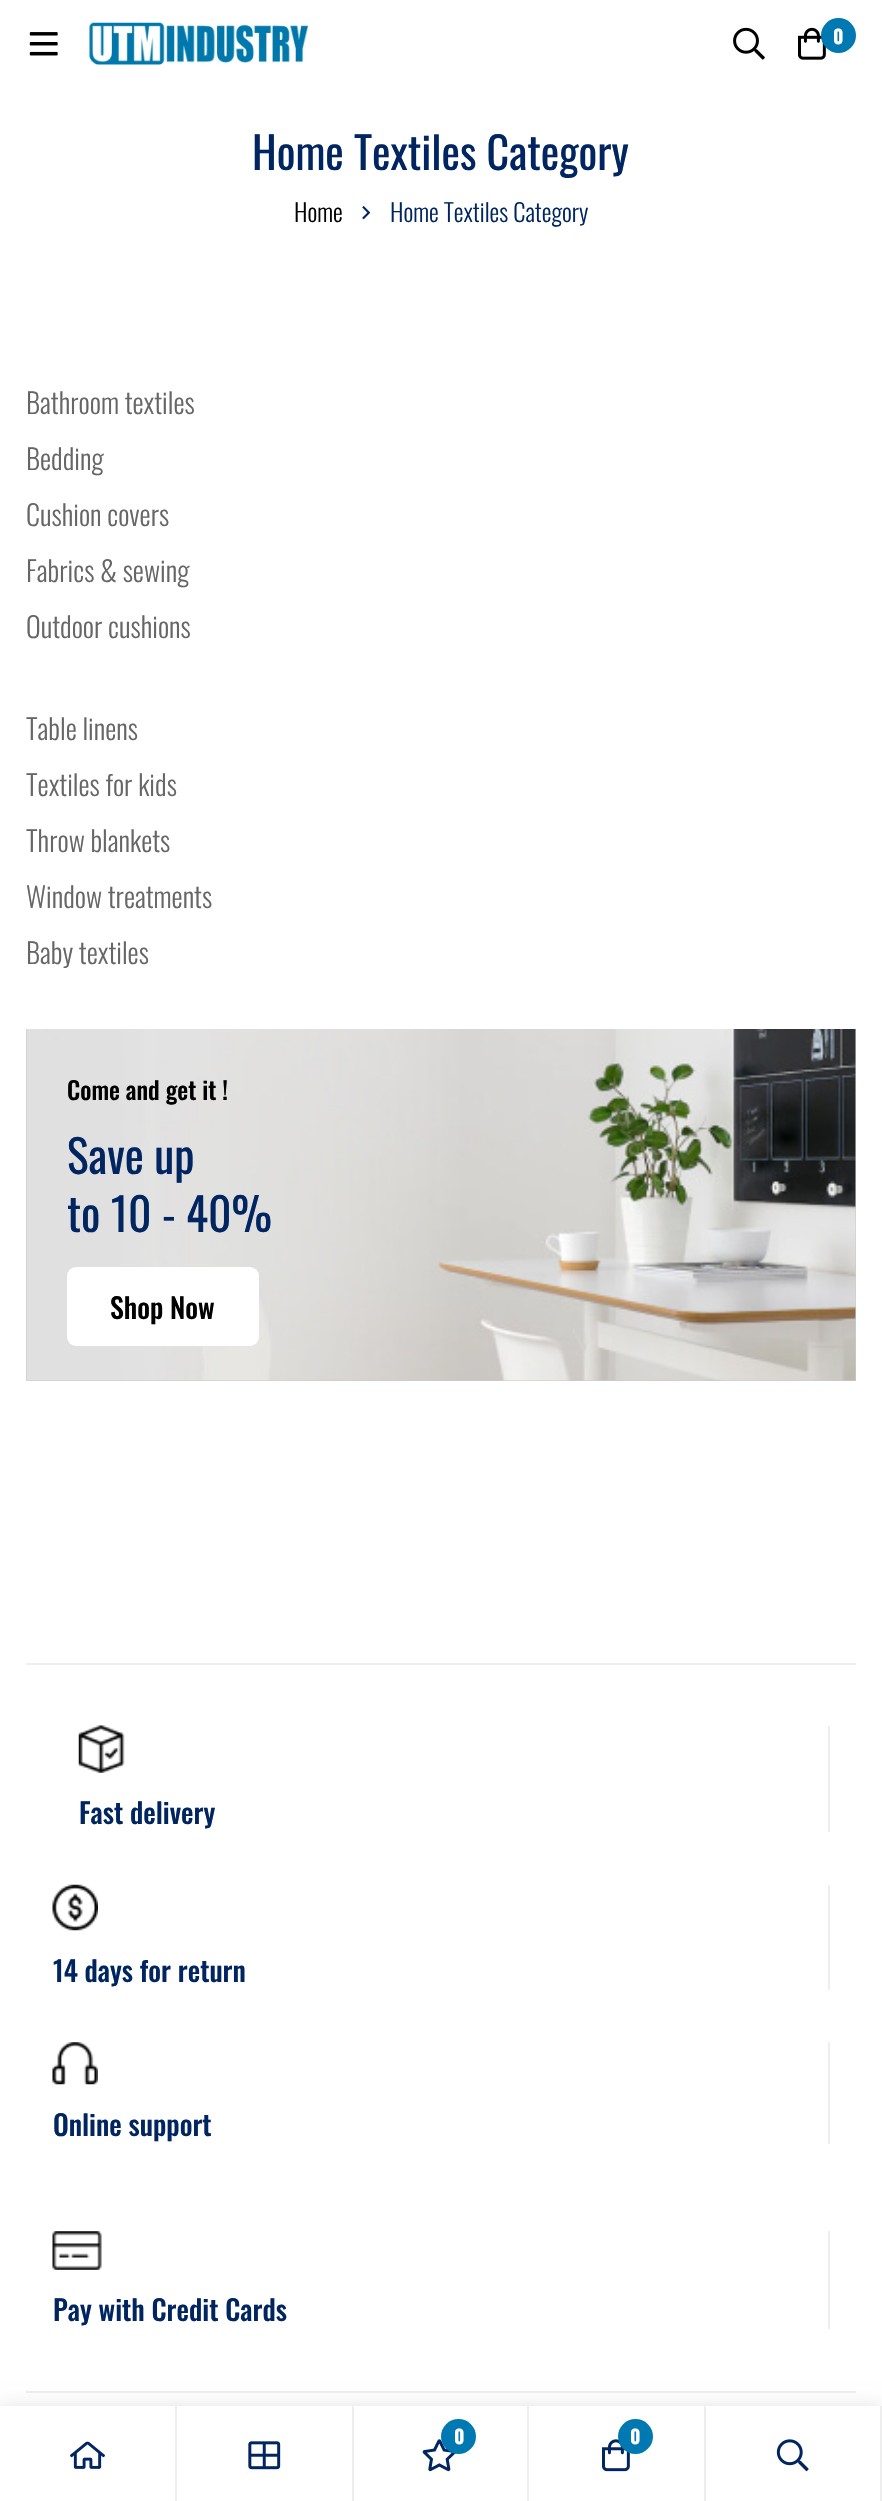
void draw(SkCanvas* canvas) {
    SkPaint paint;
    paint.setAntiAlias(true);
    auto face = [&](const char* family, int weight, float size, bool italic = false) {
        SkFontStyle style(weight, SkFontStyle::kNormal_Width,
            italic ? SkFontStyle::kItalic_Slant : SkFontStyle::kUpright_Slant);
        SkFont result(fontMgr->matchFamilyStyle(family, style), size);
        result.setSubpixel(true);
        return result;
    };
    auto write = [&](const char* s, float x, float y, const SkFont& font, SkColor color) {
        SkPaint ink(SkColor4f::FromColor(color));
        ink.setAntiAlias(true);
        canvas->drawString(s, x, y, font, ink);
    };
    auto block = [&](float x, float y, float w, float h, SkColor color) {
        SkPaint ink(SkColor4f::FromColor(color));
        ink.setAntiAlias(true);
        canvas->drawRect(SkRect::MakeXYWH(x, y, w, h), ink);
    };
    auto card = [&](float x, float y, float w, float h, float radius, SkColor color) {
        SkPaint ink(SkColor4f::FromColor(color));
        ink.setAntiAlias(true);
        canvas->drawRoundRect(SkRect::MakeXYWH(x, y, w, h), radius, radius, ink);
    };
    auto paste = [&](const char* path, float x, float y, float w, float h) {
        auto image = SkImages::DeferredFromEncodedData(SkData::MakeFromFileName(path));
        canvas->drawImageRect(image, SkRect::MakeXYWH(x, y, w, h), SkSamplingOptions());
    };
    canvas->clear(SK_ColorWHITE);
    paste("pic1.png", 29, 32, 29, 24);
    paste("pic2.png", 89, 22, 219, 43);
    paste("pic3.png", 733, 27, 32, 33);
    paste("pic4.png", 798, 27, 28, 33);
    paint.setColor(SkColorSetRGB(0, 121, 179));
    canvas->drawCircle(838.5f, 35.5f, 17.5f, paint);
    auto kFont1 = face("Oswald", 700, 19);
    write("0", 833, 44, kFont1, SK_ColorWHITE);
    auto kFont2 = face("Oswald", 400, 44);
    write("Home Textiles Category", 252, 170, kFont2, SkColorSetRGB(0, 37, 96));
    auto kFont3 = face("Oswald", 300, 24.5f);
    write("Home", 294, 222, kFont3, SK_ColorBLACK);
    paste("pic5.png", 362, 206, 9, 14);
    write("Home Textiles Category", 390, 222, kFont3, SkColorSetRGB(0, 37, 96));
    auto kFont4 = face("Oswald", 300, 28);
    write("Bathroom textiles", 26, 414, kFont4, SkColorSetRGB(102, 102, 102));
    write("Bedding", 26, 470, kFont4, SkColorSetRGB(102, 102, 102));
    write("Cushion covers", 26, 526, kFont4, SkColorSetRGB(102, 102, 102));
    write("Fabrics & sewing", 26, 582, kFont4, SkColorSetRGB(102, 102, 102));
    write("Outdoor cushions", 26, 638, kFont4, SkColorSetRGB(102, 102, 102));
    write("Table linens", 26, 740, kFont4, SkColorSetRGB(102, 102, 102));
    write("Textiles for kids", 26, 796, kFont4, SkColorSetRGB(102, 102, 102));
    write("Throw blankets", 26, 852, kFont4, SkColorSetRGB(102, 102, 102));
    write("Window treatments", 26, 908, kFont4, SkColorSetRGB(102, 102, 102));
    write("Baby textiles", 26, 964, kFont4, SkColorSetRGB(102, 102, 102));
    block(26, 1029, 830, 352, SkColorSetRGB(204, 204, 204));
    paste("pic6.png", 26, 1029, 830, 352);
    auto kFont5 = face("Oswald", 500, 24.5f);
    write("Come and get it !", 67, 1100, kFont5, SK_ColorBLACK);
    auto kFont6 = face("Oswald", 400, 45.5f);
    write("Save up", 67, 1174, kFont6, SkColorSetRGB(0, 37, 96));
    write("to 10 - 40%", 67, 1232, kFont6, SkColorSetRGB(0, 37, 96));
    card(67, 1267, 192, 79, 9, SK_ColorWHITE);
    auto kFont7 = face("Oswald", 500, 28);
    write("Shop Now", 110, 1319, kFont7, SK_ColorBLACK);
    block(26, 1663, 830, 2, SkColorSetRGB(238, 238, 238));
    block(828, 1726, 2, 106, SkColorSetRGB(238, 238, 238));
    paste("pic7.png", 78, 1725, 47, 48);
    write("Fast delivery", 79, 1824, kFont7, SkColorSetRGB(0, 37, 96));
    block(828, 1885, 2, 105, SkColorSetRGB(238, 238, 238));
    paste("pic8.png", 52, 1884, 46, 47);
    write("14 days for return", 53, 1982, kFont7, SkColorSetRGB(0, 37, 96));
    block(828, 2042, 2, 102, SkColorSetRGB(238, 238, 238));
    paste("pic9.png", 52, 2042, 46, 43);
    write("Online support", 53, 2136, kFont7, SkColorSetRGB(0, 37, 96));
    block(828, 2231, 2, 98, SkColorSetRGB(238, 238, 238));
    paste("pic10.png", 52, 2231, 50, 39);
    write("Pay with Credit Cards", 53, 2321, kFont7, SkColorSetRGB(0, 37, 96));
    block(26, 2391, 830, 2, SkColorSetRGB(238, 238, 238));
    paint.setColor(SkColorSetARGB(28, 0, 0, 0));
    paint.setMaskFilter(SkMaskFilter::MakeBlur(kNormal_SkBlurStyle, 9));
    canvas->drawRect(SkRect::MakeXYWH(0, 2406, 882, 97), paint);
    paint.setMaskFilter(nullptr);
    block(0, 2406, 880, 95, SK_ColorWHITE);
    block(175, 2406, 2, 95, SkColorSetRGB(238, 238, 238));
    paste("pic11.png", 70, 2441, 35, 28);
    block(352, 2406, 2, 95, SkColorSetRGB(238, 238, 238));
    paste("pic12.png", 248, 2441, 33, 29);
    block(527, 2406, 2, 95, SkColorSetRGB(238, 238, 238));
    paste("pic13.png", 422, 2439, 34, 33);
    paint.setColor(SkColorSetRGB(0, 121, 179));
    canvas->drawCircle(458.5f, 2436.5f, 17.5f, paint);
    write("0", 454, 2444, kFont1, SK_ColorWHITE);
    block(704, 2406, 2, 95, SkColorSetRGB(238, 238, 238));
    paste("pic14.png", 602, 2439, 28, 33);
    canvas->drawCircle(635.5f, 2436.5f, 17.5f, paint);
    write("0", 630, 2444, kFont1, SK_ColorWHITE);
    block(880, 2406, 2, 95, SkColorSetRGB(238, 238, 238));
    paste("pic15.png", 776, 2439, 33, 33);
}
